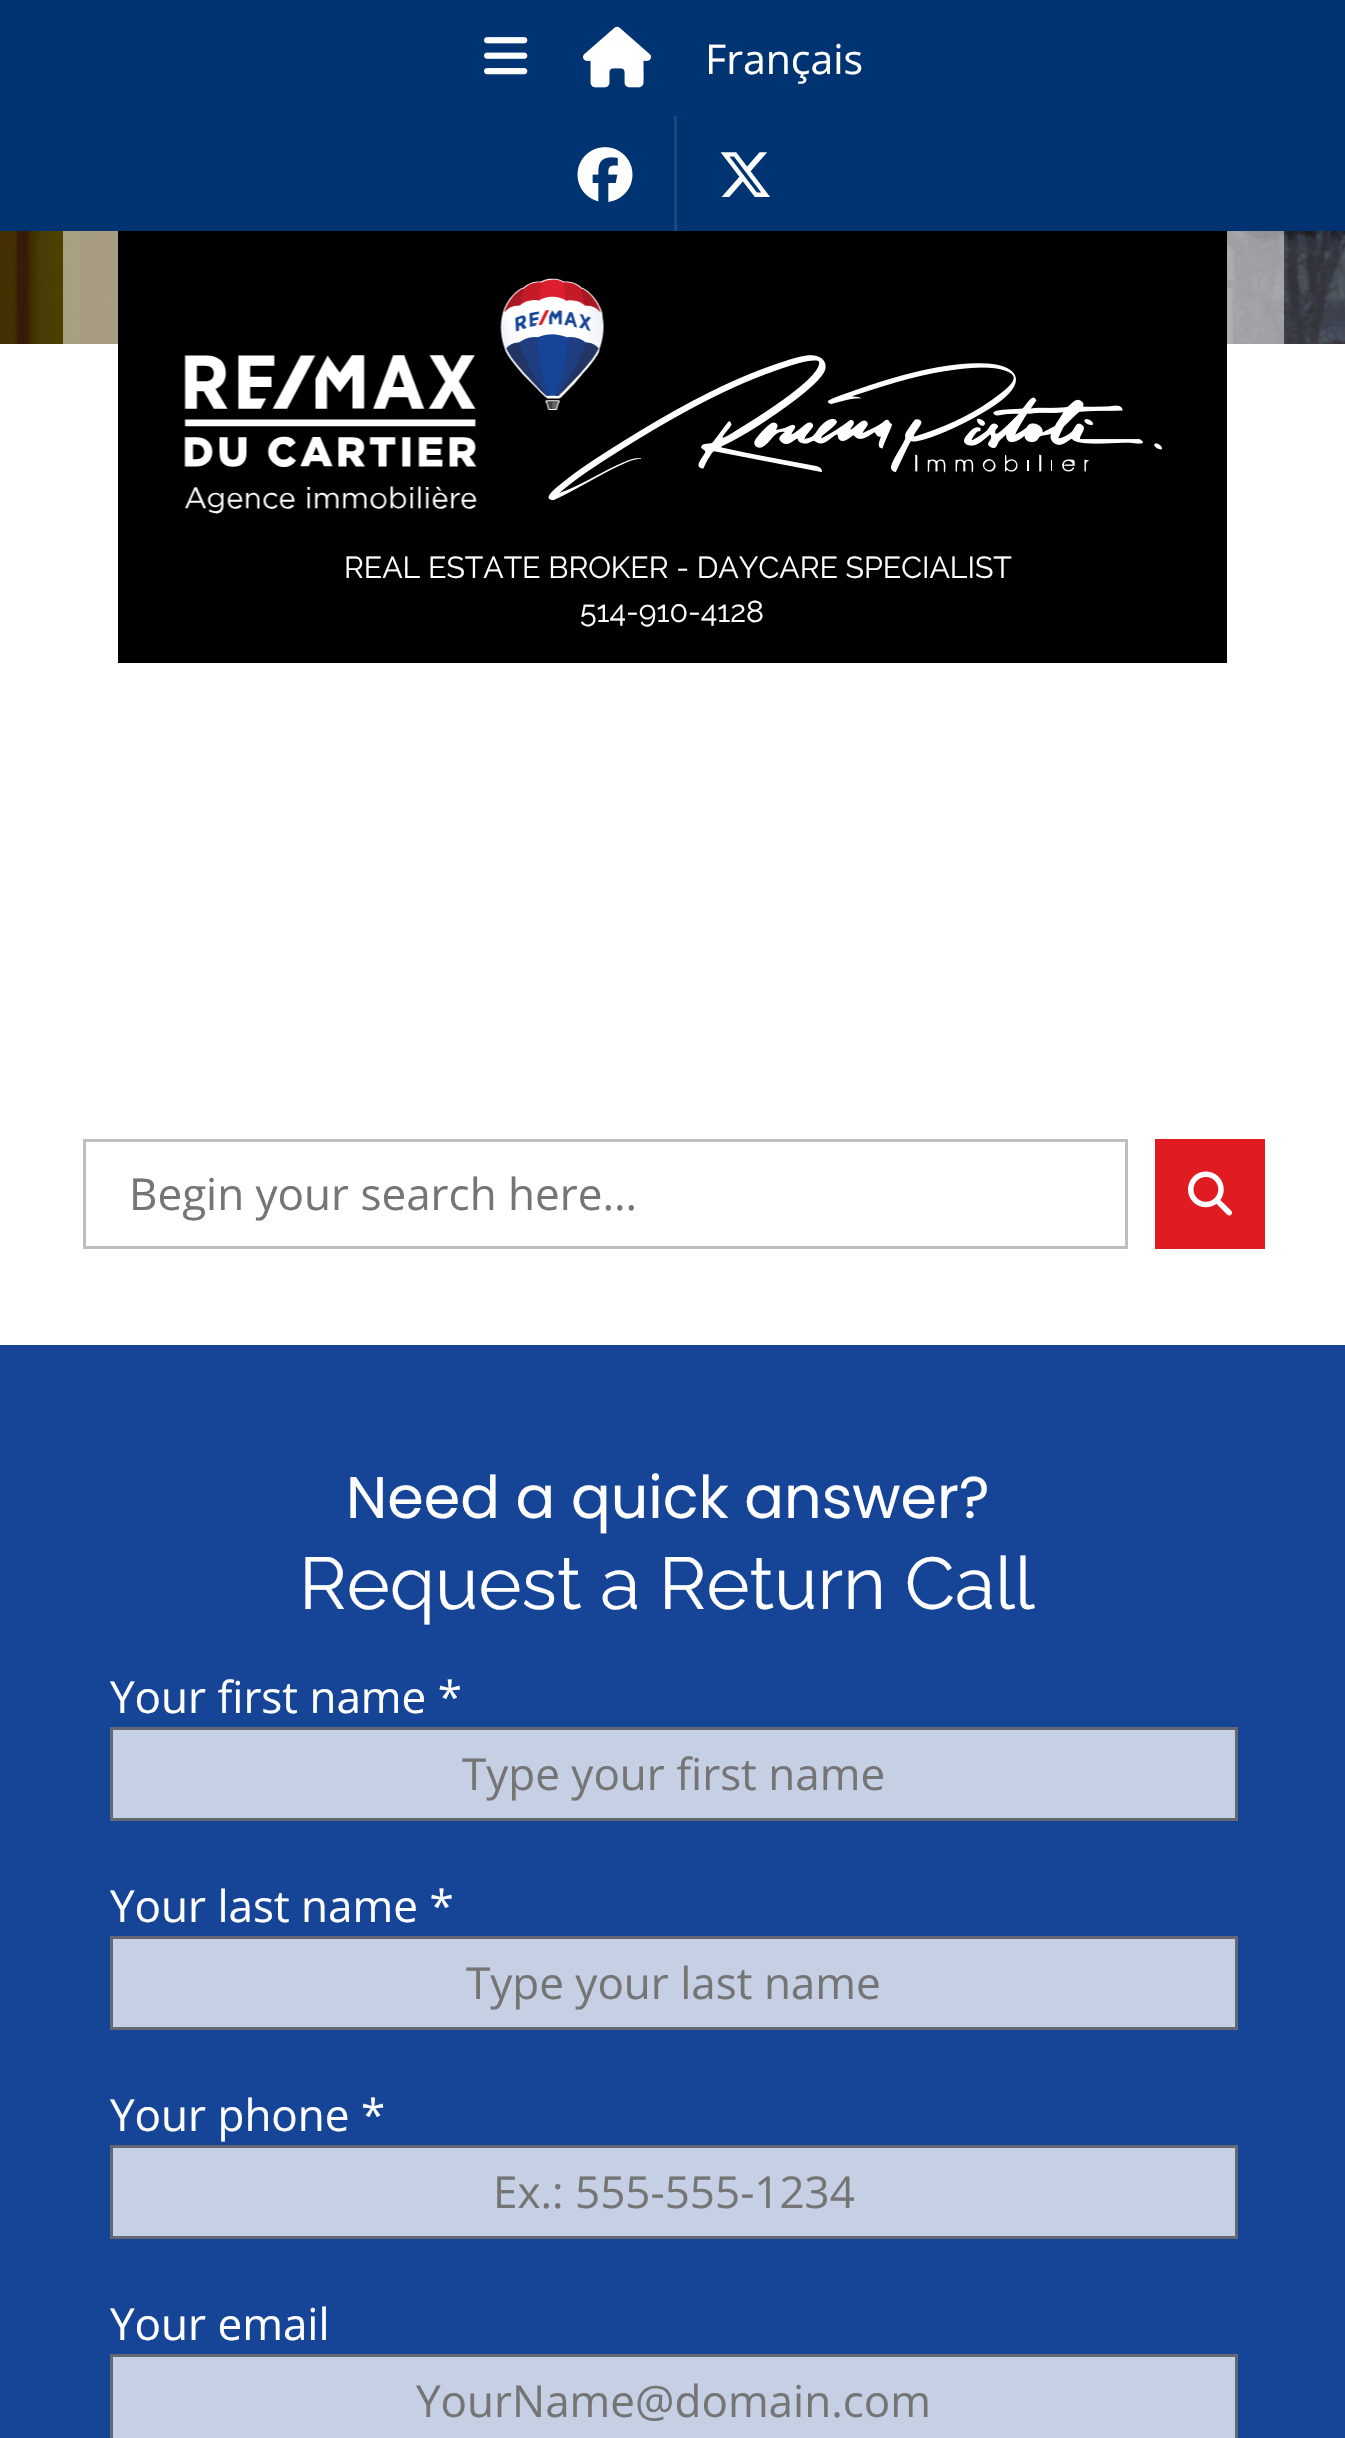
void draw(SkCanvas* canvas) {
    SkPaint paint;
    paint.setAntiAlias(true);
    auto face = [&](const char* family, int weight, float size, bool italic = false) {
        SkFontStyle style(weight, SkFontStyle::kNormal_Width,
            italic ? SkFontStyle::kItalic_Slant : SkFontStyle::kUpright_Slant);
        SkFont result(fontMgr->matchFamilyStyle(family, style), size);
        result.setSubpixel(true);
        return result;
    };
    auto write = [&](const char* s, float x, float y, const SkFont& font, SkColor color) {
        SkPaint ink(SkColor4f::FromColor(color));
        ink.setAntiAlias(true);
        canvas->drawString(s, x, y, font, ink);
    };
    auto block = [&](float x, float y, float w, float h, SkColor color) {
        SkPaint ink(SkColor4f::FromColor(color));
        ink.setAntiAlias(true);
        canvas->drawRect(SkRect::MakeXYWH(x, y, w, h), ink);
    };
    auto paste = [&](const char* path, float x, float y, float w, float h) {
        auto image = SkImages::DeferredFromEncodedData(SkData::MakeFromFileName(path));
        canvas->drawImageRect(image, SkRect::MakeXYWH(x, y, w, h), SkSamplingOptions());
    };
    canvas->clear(SK_ColorWHITE);
    block(0, 0, 1345, 231, SkColorSetRGB(0, 51, 113));
    paste("pic1.png", 484, 37, 44, 38);
    paste("pic2.png", 583, 26, 69, 62);
    auto kFont1 = face("Open Sans", 400, 41);
    write("Français", 705, 74, kFont1, SK_ColorWHITE);
    block(674, 116, 3, 115, SkColorSetRGB(26, 71, 127));
    paste("pic3.png", 577, 147, 56, 55);
    paste("pic4.png", 720, 152, 50, 45);
    paste("pic5.png", 0, 231, 1345, 113);
    paint.setColor(SkColorSetARGB(128, 255, 255, 255));
    canvas->drawPath(SkPathBuilder().moveTo(63, 231).lineTo(1284, 231).lineTo(1284, 701).cubicTo(1284, 708.5f, 1277.5f, 715, 1270, 715).lineTo(77, 715).cubicTo(69.5f, 715, 63, 708.5f, 63, 701).close().detach(), paint);
    block(118, 231, 1109, 432, SK_ColorBLACK);
    paste("pic7.png", 548, 355, 615, 146);
    paste("pic6.png", 184, 278, 420, 236);
    auto kFont2 = face("Raleway", 100, 30.25f);
    write("REAL ESTATE BROKER - DAYCARE SPECIALIST", 344, 578, kFont2, SK_ColorWHITE);
    write("514-910-4128", 580, 622, kFont2, SK_ColorWHITE);
    paint.setStyle(SkPaint::kStroke_Style);
    paint.setStrokeWidth(3);
    paint.setColor(SkColorSetRGB(191, 191, 191));
    canvas->drawRect(SkRect::MakeXYWH(84.5f, 1140.5f, 1042, 107), paint);
    auto kFont3 = face("Open Sans", 400, 44);
    write("Begin your search here...", 129, 1210, kFont3, SkColorSetRGB(117, 117, 117));
    block(1155, 1139, 110, 110, SkColorSetRGB(225, 27, 34));
    paste("pic8.png", 1188, 1171, 44, 45);
    block(0, 1345, 1345, 1093, SkColorSetRGB(22, 68, 150));
    auto kFont4 = face("Poppins", 400, 58.75f);
    write("Need a quick answer?", 346, 1518, kFont4, SK_ColorWHITE);
    auto kFont5 = face("Raleway", 100, 73.25f);
    write("Request a Return Call", 299, 1609, kFont5, SK_ColorWHITE);
    write("Your first name *", 110, 1713, kFont3, SK_ColorWHITE);
    paint.setStyle(SkPaint::kFill_Style);
    paint.setColor(SkColorSetRGB(197, 208, 229));
    canvas->drawRect(SkRect::MakeXYWH(111.5f, 1728.5f, 1125, 91), paint);
    paint.setStyle(SkPaint::kStroke_Style);
    paint.setColor(SkColorSetRGB(99, 104, 115));
    canvas->drawRect(SkRect::MakeXYWH(111.5f, 1728.5f, 1125, 91), paint);
    write("Type your first name", 462, 1790, kFont3, SkColorSetRGB(117, 117, 117));
    write("Your last name *", 110, 1922, kFont3, SK_ColorWHITE);
    paint.setStyle(SkPaint::kFill_Style);
    paint.setColor(SkColorSetRGB(197, 208, 229));
    canvas->drawRect(SkRect::MakeXYWH(111.5f, 1937.5f, 1125, 91), paint);
    paint.setStyle(SkPaint::kStroke_Style);
    paint.setColor(SkColorSetRGB(99, 104, 115));
    canvas->drawRect(SkRect::MakeXYWH(111.5f, 1937.5f, 1125, 91), paint);
    write("Type your last name", 466, 1999, kFont3, SkColorSetRGB(117, 117, 117));
    write("Your phone *", 110, 2131, kFont3, SK_ColorWHITE);
    paint.setStyle(SkPaint::kFill_Style);
    paint.setColor(SkColorSetRGB(197, 208, 229));
    canvas->drawRect(SkRect::MakeXYWH(111.5f, 2146.5f, 1125, 91), paint);
    paint.setStyle(SkPaint::kStroke_Style);
    paint.setColor(SkColorSetRGB(99, 104, 115));
    canvas->drawRect(SkRect::MakeXYWH(111.5f, 2146.5f, 1125, 91), paint);
    write("Ex.: 555-555-1234", 493, 2208, kFont3, SkColorSetRGB(117, 117, 117));
    write("Your email", 110, 2340, kFont3, SK_ColorWHITE);
    paint.setStyle(SkPaint::kFill_Style);
    paint.setColor(SkColorSetRGB(197, 208, 229));
    canvas->drawRect(SkRect::MakeXYWH(111.5f, 2355.5f, 1125, 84), paint);
    paint.setStyle(SkPaint::kStroke_Style);
    paint.setColor(SkColorSetRGB(99, 104, 115));
    canvas->drawRect(SkRect::MakeXYWH(111.5f, 2355.5f, 1125, 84), paint);
    write("YourName@domain.com", 416, 2417, kFont3, SkColorSetRGB(117, 117, 117));
}
